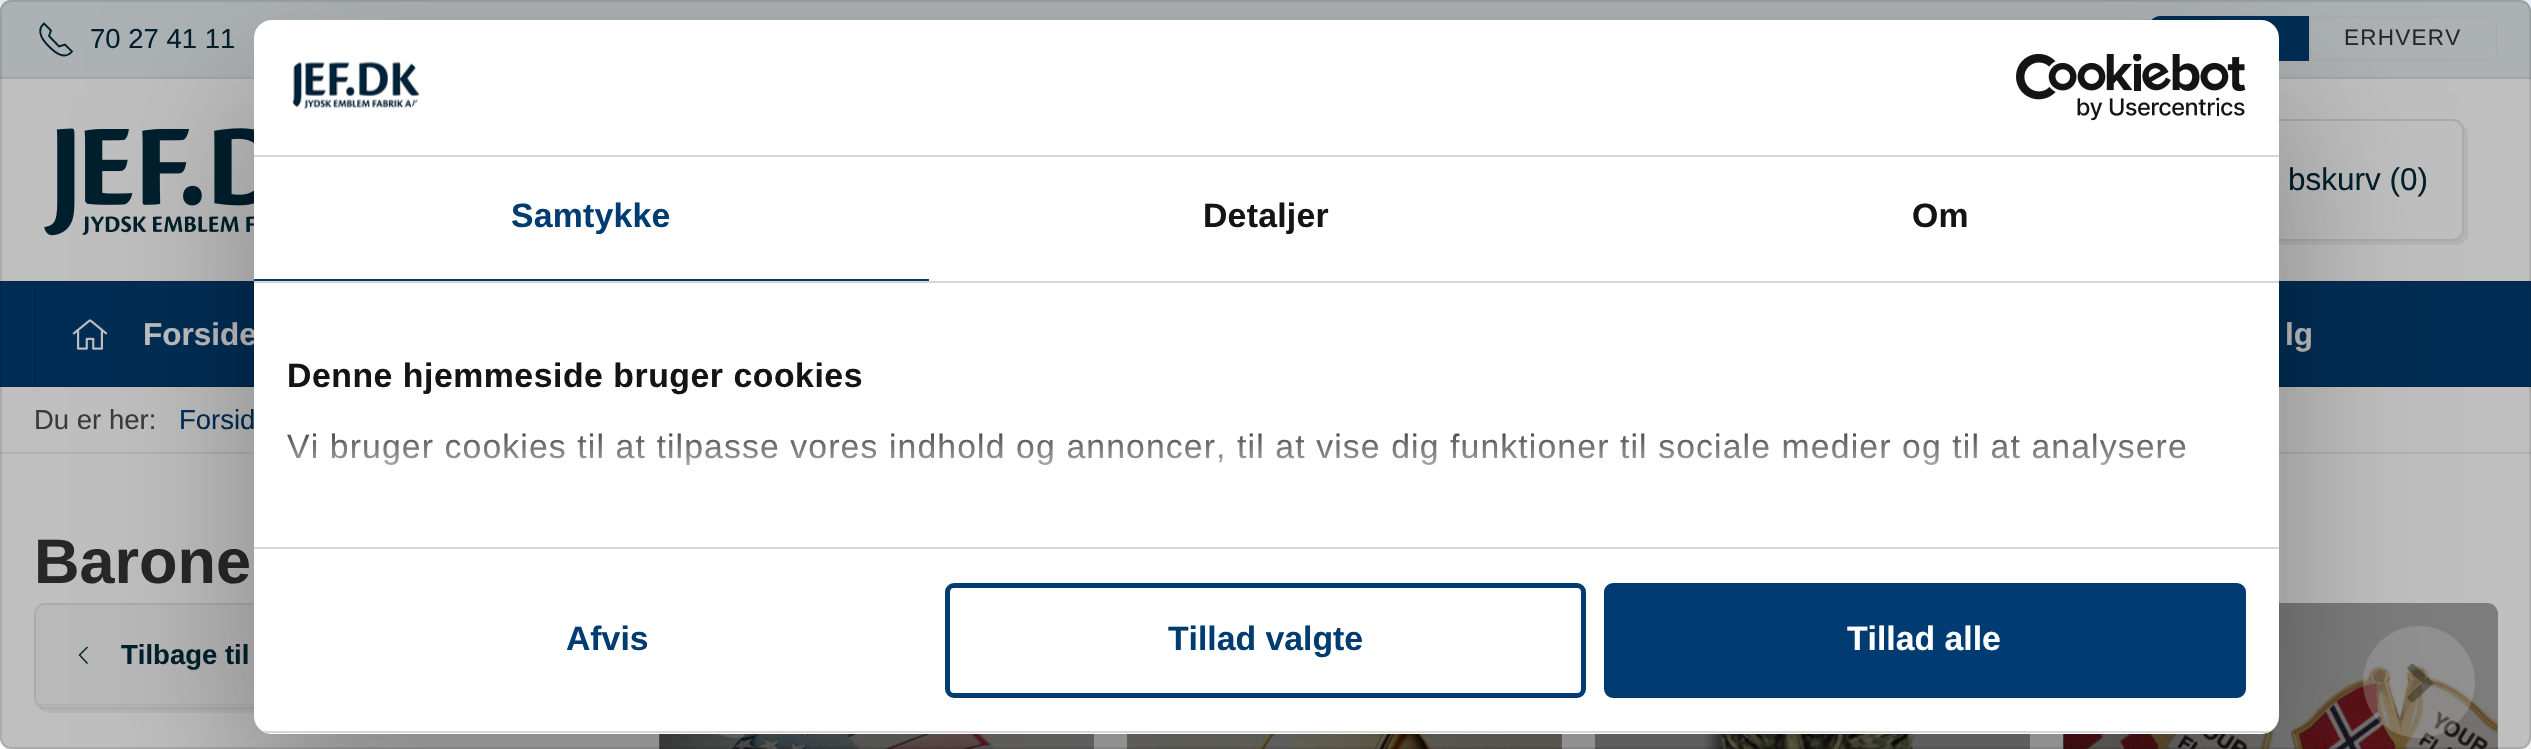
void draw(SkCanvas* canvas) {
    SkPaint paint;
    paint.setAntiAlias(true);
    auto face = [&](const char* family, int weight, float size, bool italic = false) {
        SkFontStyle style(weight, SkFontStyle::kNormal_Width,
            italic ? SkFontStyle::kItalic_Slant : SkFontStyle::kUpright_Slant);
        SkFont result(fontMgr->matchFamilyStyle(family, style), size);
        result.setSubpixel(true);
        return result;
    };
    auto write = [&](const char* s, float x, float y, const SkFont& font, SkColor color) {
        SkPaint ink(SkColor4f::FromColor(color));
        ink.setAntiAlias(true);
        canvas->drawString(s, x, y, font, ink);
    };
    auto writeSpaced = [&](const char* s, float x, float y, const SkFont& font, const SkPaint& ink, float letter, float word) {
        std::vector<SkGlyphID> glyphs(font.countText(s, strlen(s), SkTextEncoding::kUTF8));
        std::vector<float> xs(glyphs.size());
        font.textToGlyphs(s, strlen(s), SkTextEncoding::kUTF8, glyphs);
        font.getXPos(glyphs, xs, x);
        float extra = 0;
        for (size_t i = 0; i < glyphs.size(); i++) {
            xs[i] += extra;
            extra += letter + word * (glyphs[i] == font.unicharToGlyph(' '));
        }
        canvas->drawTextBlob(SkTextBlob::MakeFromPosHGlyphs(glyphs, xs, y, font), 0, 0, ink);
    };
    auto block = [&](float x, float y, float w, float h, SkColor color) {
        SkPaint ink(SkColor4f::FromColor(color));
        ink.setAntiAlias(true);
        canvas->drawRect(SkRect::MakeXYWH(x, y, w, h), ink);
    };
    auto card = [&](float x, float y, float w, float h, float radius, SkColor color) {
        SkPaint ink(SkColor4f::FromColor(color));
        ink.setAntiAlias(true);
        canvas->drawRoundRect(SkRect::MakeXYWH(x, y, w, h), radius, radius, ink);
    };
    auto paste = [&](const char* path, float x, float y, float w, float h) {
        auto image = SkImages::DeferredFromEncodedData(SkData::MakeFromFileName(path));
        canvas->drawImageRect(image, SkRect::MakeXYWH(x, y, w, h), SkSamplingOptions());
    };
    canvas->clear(SK_ColorWHITE);
    block(0, 77, 2531, 2, SkColorSetRGB(222, 222, 222));
    block(0, 0, 2531, 77, SkColorSetRGB(230, 236, 241));
    paint.setStyle(SkPaint::kStroke_Style);
    paint.setStrokeWidth(1.9f);
    paint.setColor(SkColorSetRGB(0, 41, 59));
    canvas->drawPath(SkPathBuilder().moveTo(49, 46.5f).cubicTo(55, 52.5f, 64.5f, 60.5f, 72, 51.5f).lineTo(65, 44.5f).lineTo(59, 46.5f).lineTo(49, 36).lineTo(51, 30.5f).lineTo(44, 23.5f).cubicTo(35.5f, 31, 43, 40.5f, 49, 46.5f).detach(), paint);
    auto kFont1 = face("Liberation Sans", 400, 27.5f);
    write("70 27 41 11", 90, 48, kFont1, SkColorSetRGB(0, 41, 59));
    paint.setStyle(SkPaint::kFill_Style);
    paint.setColor(SkColorSetRGB(0, 60, 113));
    canvas->drawPath(SkPathBuilder().moveTo(2160, 16).lineTo(2311, 16).lineTo(2311, 61).lineTo(2160, 61).cubicTo(2154, 61, 2149, 56, 2149, 50).lineTo(2149, 27).cubicTo(2149, 21, 2154, 16, 2160, 16).close().detach(), paint);
    paint.setStyle(SkPaint::kStroke_Style);
    paint.setStrokeWidth(2);
    paint.setColor(SkColorSetRGB(230, 230, 230));
    canvas->drawPath(SkPathBuilder().moveTo(2310, 17).lineTo(2487, 17).cubicTo(2492.5f, 17, 2497, 21.5f, 2497, 27).lineTo(2497, 50).cubicTo(2497, 55.5f, 2492.5f, 60, 2487, 60).lineTo(2310, 60).close().detach(), paint);
    auto kFont2 = face("Liberation Sans", 400, 22.5f);
    paint.setStyle(SkPaint::kFill_Style);
    paint.setColor(SkColorSetRGB(51, 51, 51));
    writeSpaced("ERHVERV", 2344, 45, kFont2, paint, 1.25f, 0);
    paste("pic1.png", 44, 128, 210, 108);
    paint.setColor(SkColorSetRGB(240, 240, 240));
    canvas->drawPath(SkPathBuilder().moveTo(2088, 240).cubicTo(2089, 243, 2093, 245, 2097, 245).lineTo(2457, 245).cubicTo(2463, 245, 2468, 240, 2468, 234).lineTo(2468, 135).cubicTo(2468, 131, 2466, 127, 2463, 126).cubicTo(2463, 127, 2464, 129, 2464, 130).lineTo(2464, 230).cubicTo(2464, 236, 2459, 241, 2452, 241).lineTo(2092, 241).cubicTo(2091, 241, 2089, 240, 2088, 240).close().detach(), paint);
    card(2081, 119, 383, 122, 11, SK_ColorWHITE);
    paint.setStyle(SkPaint::kStroke_Style);
    paint.setColor(SkColorSetARGB(26, 0, 0, 0));
    canvas->drawRoundRect(SkRect::MakeXYWH(2082, 120, 381, 120), 10, 10, paint);
    auto kFont3 = face("Liberation Sans", 400, 31.5f);
    write("bskurv (0)", 2288, 190, kFont3, SkColorSetRGB(0, 41, 59));
    block(0, 283, 2531, 102, SkColorSetRGB(0, 60, 113));
    block(0, 281, 2531, 2, SkColorSetRGB(0, 54, 102));
    block(0, 385, 2531, 2, SkColorSetRGB(0, 54, 102));
    block(34, 284, 2, 101, SkColorSetRGB(0, 57, 107));
    paste("pic2.png", 72, 319, 36, 31);
    auto kFont4 = face("Liberation Sans", 700, 31.5f);
    write("Forside", 143, 345, kFont4, SK_ColorWHITE);
    block(2347, 284, 2, 101, SkColorSetRGB(0, 57, 107));
    write("lg", 2285, 345, kFont4, SK_ColorWHITE);
    block(0, 452, 2531, 2, SkColorSetRGB(236, 236, 236));
    write("Du er her:", 34, 429, kFont1, SkColorSetRGB(77, 77, 77));
    write("Forsid", 179, 429, kFont1, SkColorSetRGB(0, 60, 113));
    auto kFont5 = face("Liberation Sans", 700, 63);
    write("Barone", 34, 583, kFont5, SkColorSetRGB(51, 51, 51));
    paint.setStyle(SkPaint::kFill_Style);
    paint.setColor(SkColorSetRGB(240, 240, 240));
    canvas->drawPath(SkPathBuilder().moveTo(39, 707).cubicTo(41, 711, 45, 713, 49, 713).lineTo(619, 713).cubicTo(625, 713, 630, 708, 630, 702).lineTo(630, 619).cubicTo(630, 615, 628, 611, 624, 609).cubicTo(625, 611, 626, 613, 626, 614).lineTo(626, 698).cubicTo(626, 704, 620, 709, 614, 709).lineTo(45, 709).cubicTo(43, 709, 41, 708, 39, 707).close().detach(), paint);
    paint.setStyle(SkPaint::kStroke_Style);
    paint.setColor(SkColorSetARGB(26, 0, 0, 0));
    canvas->drawRoundRect(SkRect::MakeXYWH(35, 604, 590, 104), 10, 10, paint);
    card(36, 605, 587, 102, 9, SkColorSetRGB(247, 247, 247));
    canvas->save();
    canvas->clipPath(SkPathBuilder().moveTo(45, 605).lineTo(614, 605).cubicTo(619, 605, 623, 609, 623, 614).lineTo(623, 698).cubicTo(623, 703, 619, 707, 614, 707).lineTo(45, 707).cubicTo(40, 707, 36, 703, 36, 698).lineTo(36, 614).cubicTo(36, 609, 40, 605, 45, 605).close().detach(), true);
    block(36, 704, 218, 2, SkColorSetRGB(235, 235, 235));
    canvas->restore();
    paint.setStrokeWidth(1.4f);
    paint.setColor(SkColorSetRGB(0, 41, 59));
    canvas->drawPath(SkPathBuilder().moveTo(87.5f, 663.5f).lineTo(79.5f, 655).lineTo(87.5f, 647).detach(), paint);
    auto kFont6 = face("Liberation Sans", 700, 27.5f);
    write("Tilbage til", 121, 664, kFont6, SkColorSetRGB(0, 41, 59));
    paste("pic3.png", 659, 734, 423, 15);
    block(659, 734, 435, 15, SkColorSetARGB(89, 0, 0, 0));
    paste("pic4.png", 1127, 734, 435, 15);
    block(1127, 734, 435, 15, SkColorSetARGB(89, 0, 0, 0));
    paste("pic5.png", 1702, 734, 218, 15);
    block(1595, 734, 435, 15, SkColorSetARGB(89, 0, 0, 0));
    paste("pic6.png", 2063, 659, 435, 90);
    card(2063, 603, 435, 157, 11, SkColorSetARGB(89, 0, 0, 0));
    paint.setStyle(SkPaint::kFill_Style);
    paint.setColor(SkColorSetARGB(77, 255, 255, 255));
    canvas->drawCircle(738, 682, 56, paint);
    canvas->drawCircle(2419, 682, 56, paint);
    canvas->save();
    canvas->clipRect(SkRect::MakeXYWH(2403, 664, 32, 38));
    paint.setStyle(SkPaint::kStroke_Style);
    paint.setStrokeWidth(8);
    paint.setColor(SkColorSetARGB(77, 0, 0, 0));
    canvas->drawPath(SkPathBuilder().moveTo(2409.5f, 700.5f).lineTo(2428, 683).lineTo(2409.5f, 665.5f).detach(), paint);
    canvas->restore();
    paint.setStyle(SkPaint::kFill_Style);
    paint.setColor(SkColorSetRGB(240, 240, 240));
    canvas->drawPath(SkPathBuilder().moveTo(6, 748).cubicTo(8, 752, 12, 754, 16, 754).lineTo(2525, 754).cubicTo(2531, 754, 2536, 749, 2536, 743).lineTo(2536, 16).cubicTo(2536, 12, 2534, 8, 2530, 6).cubicTo(2531, 8, 2531, 9, 2531, 11).lineTo(2531, 738).cubicTo(2531, 744, 2526, 749, 2520, 749).lineTo(11, 749).cubicTo(9, 749, 8, 749, 6, 748).close().detach(), paint);
    card(0, 0, 2531, 749, 11, SkColorSetARGB(64, 0, 0, 0));
    paint.setStyle(SkPaint::kStroke_Style);
    paint.setStrokeWidth(2);
    paint.setColor(SkColorSetARGB(26, 0, 0, 0));
    canvas->drawRoundRect(SkRect::MakeXYWH(1, 1, 2529, 747), 10, 10, paint);
    paint.setStyle(SkPaint::kFill_Style);
    paint.setColor(SkColorSetARGB(77, 0, 0, 0));
    paint.setMaskFilter(SkMaskFilter::MakeBlur(kNormal_SkBlurStyle, 76.5f));
    canvas->drawRoundRect(SkRect::MakeXYWH(254, 92, 2025, 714), 18, 18, paint);
    paint.setMaskFilter(nullptr);
    card(254, 20, 2025, 714, 18, SK_ColorWHITE);
    block(254, 155, 2025, 2, SkColorSetRGB(214, 214, 214));
    paste("pic7.png", 292, 61, 128, 49);
    paste("pic8.png", 2016, 54, 230, 67);
    block(254, 281, 2025, 2, SkColorSetRGB(214, 214, 214));
    block(254, 279, 675, 2, SkColorSetRGB(0, 60, 113));
    auto kFont7 = face("Liberation Sans", 700, 33.75f);
    paint.setColor(SkColorSetRGB(0, 60, 113));
    writeSpaced("Samtykke", 511, 227, kFont7, paint, 0.25f, 0);
    paint.setColor(SkColorSetRGB(20, 20, 20));
    writeSpaced("Detaljer", 1203, 227, kFont7, paint, 0.25f, 0);
    writeSpaced("Om", 1912, 227, kFont7, paint, 0.25f, 0);
    block(254, 547, 2025, 2, SkColorSetRGB(214, 214, 214));
    writeSpaced("Denne hjemmeside bruger cookies", 287, 387, kFont7, paint, 0.55f, 0);
    auto kFont8 = face("Liberation Sans", 400, 33.75f);
    writeSpaced("Vi bruger cookies til at tilpasse vores indhold og annoncer, til at vise dig funktioner til sociale medier og til at analysere", 287, 458, kFont8, paint, 1.12f, 0);
    {
        const SkColor colors[] = {SK_ColorWHITE, SkColorSetARGB(204, 255, 255, 255), SkColorSetARGB(0, 255, 255, 255)};
        const float stops[] = {0, 0.5f, 1};
        const SkPoint ends[] = {{1252, 546}, {1252, 413}};
        paint.setShader(SkGradientShader::MakeLinear(ends, colors, stops, 3, SkTileMode::kClamp));
        paint.setAlpha(255);
    }
    canvas->drawRect(SkRect::MakeXYWH(287, 433, 1899, 32), paint);
    canvas->save();
    canvas->clipPath(SkPathBuilder().moveTo(272, 20).lineTo(2261, 20).cubicTo(2271, 20, 2279, 28, 2279, 38).lineTo(2279, 716).cubicTo(2279, 726, 2271, 734, 2261, 734).lineTo(272, 734).cubicTo(262, 734, 254, 726, 254, 716).lineTo(254, 38).cubicTo(254, 28, 262, 20, 272, 20).close().detach(), true);
    block(254, 731, 2025, 2, SkColorSetRGB(214, 214, 214));
    canvas->restore();
    write("Afvis", 566, 650, kFont7, SkColorSetRGB(0, 60, 113));
    paint.setStyle(SkPaint::kStroke_Style);
    paint.setStrokeWidth(5);
    paint.setShader(nullptr);
    paint.setColor(SkColorSetRGB(0, 60, 113));
    canvas->drawRoundRect(SkRect::MakeXYWH(947.5f, 585.5f, 636, 110), 6.5f, 6.5f, paint);
    write("Tillad valgte", 1168, 650, kFont7, SkColorSetRGB(0, 60, 113));
    paint.setStyle(SkPaint::kFill_Style);
    canvas->drawRoundRect(SkRect::MakeXYWH(1606.5f, 585.5f, 637, 110), 6.5f, 6.5f, paint);
    paint.setStyle(SkPaint::kStroke_Style);
    canvas->drawRoundRect(SkRect::MakeXYWH(1606.5f, 585.5f, 637, 110), 6.5f, 6.5f, paint);
    write("Tillad alle", 1847, 650, kFont7, SK_ColorWHITE);
}
